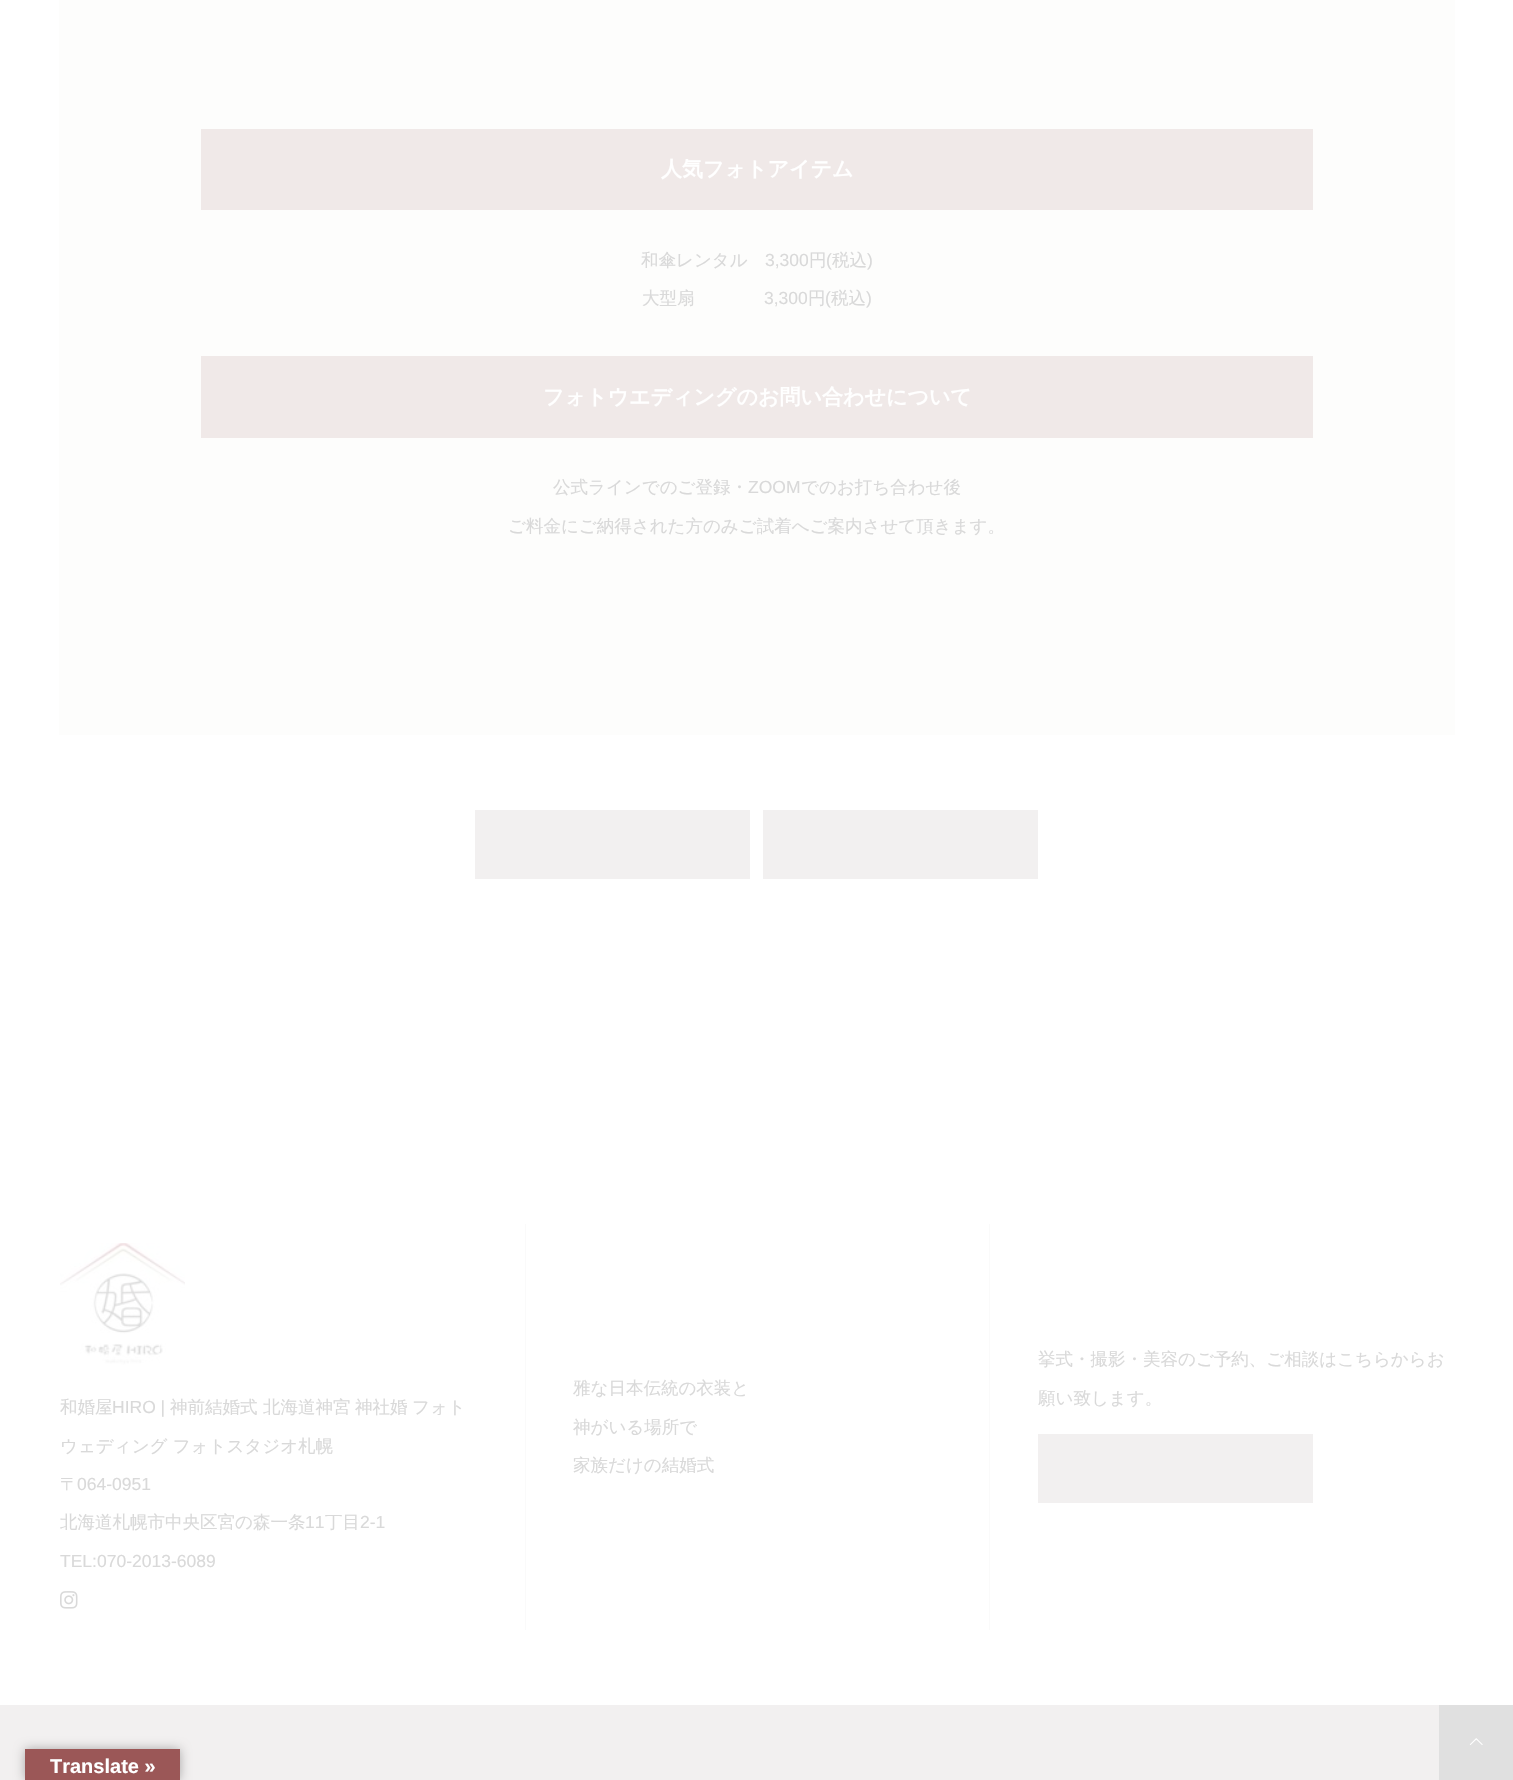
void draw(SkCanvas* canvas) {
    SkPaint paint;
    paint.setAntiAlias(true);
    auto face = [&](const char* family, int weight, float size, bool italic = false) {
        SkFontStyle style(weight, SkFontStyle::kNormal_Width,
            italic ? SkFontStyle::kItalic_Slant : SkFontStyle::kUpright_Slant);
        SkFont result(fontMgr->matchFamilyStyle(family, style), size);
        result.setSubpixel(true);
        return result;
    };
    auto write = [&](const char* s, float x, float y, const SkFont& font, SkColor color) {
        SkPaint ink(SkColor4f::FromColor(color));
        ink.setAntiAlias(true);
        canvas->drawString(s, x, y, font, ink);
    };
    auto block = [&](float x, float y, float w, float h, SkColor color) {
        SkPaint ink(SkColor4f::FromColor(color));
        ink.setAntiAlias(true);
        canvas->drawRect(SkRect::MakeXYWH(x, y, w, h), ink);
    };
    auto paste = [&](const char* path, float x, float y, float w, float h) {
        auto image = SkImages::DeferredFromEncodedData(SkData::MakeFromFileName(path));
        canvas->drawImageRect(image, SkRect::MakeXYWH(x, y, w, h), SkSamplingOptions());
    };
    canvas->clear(SK_ColorWHITE);
    block(59, 0, 1396, 735, SkColorSetRGB(253, 253, 252));
    block(201, 129, 1112, 81, SkColorSetRGB(240, 233, 232));
    auto kFont1 = face("WenQuanYi Zen Hei", 700, 21);
    write("人気フォトアイテム", 661, 176, kFont1, SK_ColorWHITE);
    auto kFont2 = face("WenQuanYi Zen Hei", 500, 17.5f);
    write("和傘レンタル", 641, 266, kFont2, SkColorSetRGB(217, 217, 217));
    auto kFont3 = face("Liberation Sans", 400, 17.5f);
    write("3,300", 765, 266, kFont3, SkColorSetRGB(217, 217, 217));
    write("円", 809, 266, kFont2, SkColorSetRGB(217, 217, 217));
    write("(", 826, 266, kFont3, SkColorSetRGB(217, 217, 217));
    write("税込", 832, 266, kFont2, SkColorSetRGB(217, 217, 217));
    write(")", 867, 266, kFont3, SkColorSetRGB(217, 217, 217));
    write("大型扇", 642, 304, kFont2, SkColorSetRGB(217, 217, 217));
    write("3,300", 764, 304, kFont3, SkColorSetRGB(217, 217, 217));
    write("円", 808, 304, kFont2, SkColorSetRGB(217, 217, 217));
    write("(", 825, 304, kFont3, SkColorSetRGB(217, 217, 217));
    write("税込", 831, 304, kFont2, SkColorSetRGB(217, 217, 217));
    write(")", 866, 304, kFont3, SkColorSetRGB(217, 217, 217));
    block(201, 356, 1112, 82, SkColorSetRGB(240, 233, 232));
    write("フォトウエディングのお問い合わせについて", 543, 404, kFont1, SK_ColorWHITE);
    write("公式ラインでのご登録・", 553, 493, kFont2, SkColorSetRGB(217, 217, 217));
    write("ZOOM", 748, 493, kFont3, SkColorSetRGB(217, 217, 217));
    write("でのお打ち合わせ後", 801, 493, kFont2, SkColorSetRGB(217, 217, 217));
    write("ご料金にご納得された方のみご試着へご案内させて頂きます。", 508, 532, kFont2, SkColorSetRGB(217, 217, 217));
    block(475, 810, 275, 69, SkColorSetRGB(242, 240, 240));
    block(763, 810, 275, 69, SkColorSetRGB(242, 240, 240));
    paste("pic1.png", 60, 1243, 125, 122);
    write("和婚屋", 60, 1413, kFont2, SkColorSetRGB(217, 217, 217));
    write("HIRO |", 112, 1413, kFont3, SkColorSetRGB(217, 217, 217));
    write("神前結婚式", 170, 1413, kFont2, SkColorSetRGB(217, 217, 217));
    write("北海道神宮", 263, 1413, kFont2, SkColorSetRGB(217, 217, 217));
    write("神社婚", 355, 1413, kFont2, SkColorSetRGB(217, 217, 217));
    write("フォト", 412, 1413, kFont2, SkColorSetRGB(217, 217, 217));
    write("ウェディング フォトスタジオ札幌", 60, 1452, kFont2, SkColorSetRGB(217, 217, 217));
    write("〒", 60, 1490, kFont2, SkColorSetRGB(217, 217, 217));
    write("064-0951", 77, 1490, kFont3, SkColorSetRGB(217, 217, 217));
    write("北海道札幌市中央区宮の森一条", 60, 1528, kFont2, SkColorSetRGB(217, 217, 217));
    write("11", 305, 1528, kFont3, SkColorSetRGB(217, 217, 217));
    write("丁目", 325, 1528, kFont2, SkColorSetRGB(217, 217, 217));
    write("2-1", 360, 1528, kFont3, SkColorSetRGB(217, 217, 217));
    write("TEL:070-2013-6089", 60, 1567, kFont3, SkColorSetRGB(217, 217, 217));
    paste("pic2.png", 60, 1591, 18, 18);
    block(525, 1224, 1, 406, SkColorSetRGB(250, 250, 250));
    write("雅な日本伝統の衣装と", 573, 1394, kFont2, SkColorSetRGB(217, 217, 217));
    write("神がいる場所で", 573, 1433, kFont2, SkColorSetRGB(217, 217, 217));
    write("家族だけの結婚式", 573, 1471, kFont2, SkColorSetRGB(217, 217, 217));
    block(989, 1224, 1, 406, SkColorSetRGB(250, 250, 250));
    write("挙式・撮影・美容のご予約、ご相談はこちらからお", 1038, 1365, kFont2, SkColorSetRGB(217, 217, 217));
    write("願い致します。", 1038, 1404, kFont2, SkColorSetRGB(217, 217, 217));
    block(1038, 1434, 275, 69, SkColorSetRGB(242, 240, 240));
    block(0, 1705, 1439, 75, SkColorSetRGB(242, 240, 240));
    block(1439, 1705, 74, 75, SkColorSetRGB(224, 224, 224));
    paste("pic3.png", 1469, 1738, 14, 7);
    paint.setColor(SkColorSetARGB(77, 0, 0, 0));
    paint.setMaskFilter(SkMaskFilter::MakeBlur(kNormal_SkBlurStyle, 5.5f));
    canvas->drawRect(SkRect::MakeXYWH(25, 1749, 155, 31), paint);
    paint.setMaskFilter(nullptr);
    block(25, 1749, 155, 31, SkColorSetRGB(155, 87, 87));
    auto kFont4 = face("Liberation Sans", 700, 20);
    write("Translate »", 50, 1773, kFont4, SK_ColorWHITE);
}
